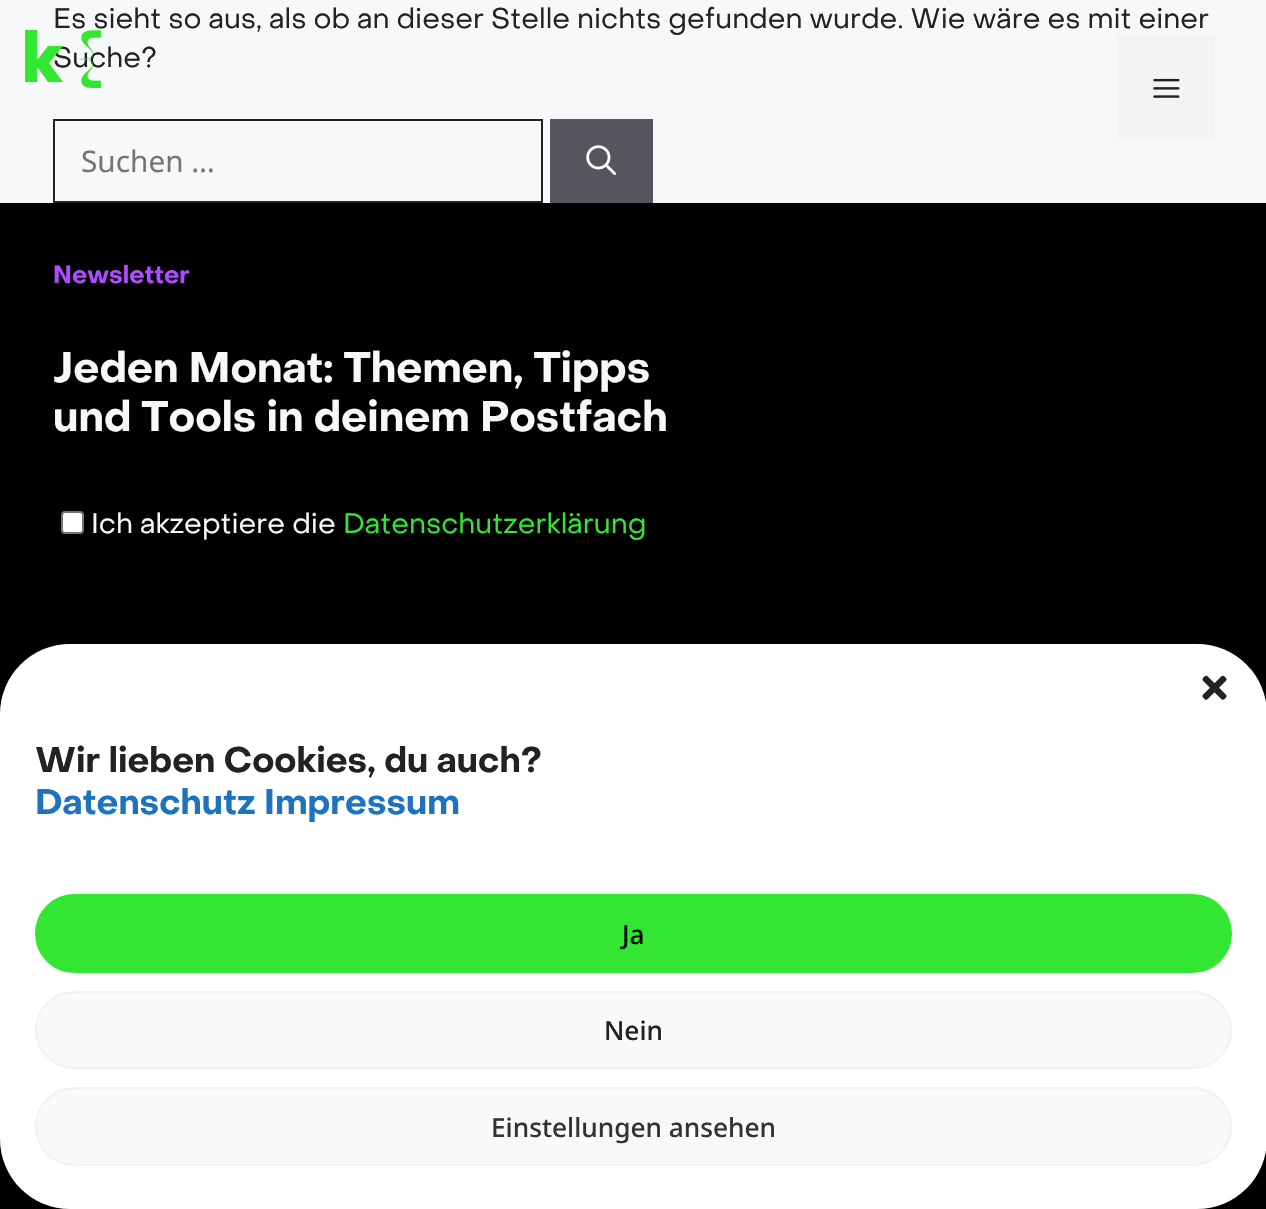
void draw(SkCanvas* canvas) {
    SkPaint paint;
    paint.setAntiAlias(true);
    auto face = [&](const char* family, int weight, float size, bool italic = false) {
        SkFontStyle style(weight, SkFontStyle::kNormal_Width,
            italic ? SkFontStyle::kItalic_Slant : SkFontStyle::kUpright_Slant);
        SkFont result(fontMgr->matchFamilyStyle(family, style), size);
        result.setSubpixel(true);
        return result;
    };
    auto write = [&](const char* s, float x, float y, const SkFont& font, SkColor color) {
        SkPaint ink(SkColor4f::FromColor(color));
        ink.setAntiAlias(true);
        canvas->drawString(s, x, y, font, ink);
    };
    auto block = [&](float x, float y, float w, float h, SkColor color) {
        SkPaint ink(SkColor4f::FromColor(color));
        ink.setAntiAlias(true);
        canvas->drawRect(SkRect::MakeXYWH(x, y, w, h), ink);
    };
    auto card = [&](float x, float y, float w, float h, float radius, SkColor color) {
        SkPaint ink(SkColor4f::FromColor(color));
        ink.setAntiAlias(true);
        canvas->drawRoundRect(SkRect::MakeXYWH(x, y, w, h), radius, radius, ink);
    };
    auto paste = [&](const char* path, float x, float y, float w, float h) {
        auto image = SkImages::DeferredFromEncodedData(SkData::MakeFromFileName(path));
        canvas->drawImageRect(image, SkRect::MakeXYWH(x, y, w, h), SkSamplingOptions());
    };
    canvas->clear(SkColorSetRGB(247, 248, 249));
    auto kFont1 = face("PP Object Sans", 400, 28);
    write("Es sieht so aus, als ob an dieser Stelle nichts gefunden wurde. Wie wäre es mit einer", 53, 28, kFont1, SkColorSetRGB(34, 34, 34));
    write("Suche?", 53, 67, kFont1, SkColorSetRGB(34, 34, 34));
    paint.setStyle(SkPaint::kStroke_Style);
    paint.setStrokeWidth(2);
    paint.setColor(SkColorSetRGB(34, 34, 34));
    canvas->drawRect(SkRect::MakeXYWH(54, 120, 488, 82), paint);
    auto kFont2 = face("Noto Sans", 400, 29.75f);
    write("Suchen …", 81, 172, kFont2, SkColorSetRGB(117, 117, 117));
    block(550, 119, 103, 84, SkColorSetRGB(85, 85, 94));
    paste("pic1.png", 586, 145, 30, 30);
    canvas->save();
    canvas->clipRect(SkRect::MakeXYWH(25, 30, 38, 52));
    paint.setStyle(SkPaint::kFill_Style);
    paint.setColor(SkColorSetRGB(50, 230, 50));
    canvas->drawPath(SkPathBuilder().moveTo(24, 82).lineTo(37, 82).lineTo(37, 68).lineTo(38, 68).lineTo(48, 82).lineTo(63, 82).lineTo(49, 63).lineTo(63, 46).lineTo(48, 46).lineTo(38, 59).lineTo(37, 59).lineTo(37, 30).lineTo(24, 30).close().detach(), paint);
    canvas->restore();
    paste("pic2.png", 79, 30, 22, 58);
    block(1118, 35, 97, 105, SkColorSetRGB(242, 243, 244));
    paste("pic3.png", 1153, 78, 27, 20);
    block(0, 203, 1266, 1006, SK_ColorBLACK);
    auto kFont3 = face("PP Object Sans", 700, 24.5f);
    write("Newsletter", 53, 283, kFont3, SkColorSetRGB(176, 75, 255));
    auto kFont4 = face("PP Object Sans", 700, 42);
    write("Jeden Monat: Themen, Tipps", 53, 382, kFont4, SkColorSetRGB(247, 248, 249));
    write("und Tools in deinem Postfach", 53, 431, kFont4, SkColorSetRGB(247, 248, 249));
    paint.setColor(SK_ColorWHITE);
    canvas->drawRoundRect(SkRect::MakeXYWH(62, 512, 21, 21), 3, 3, paint);
    paint.setStyle(SkPaint::kStroke_Style);
    paint.setColor(SkColorSetRGB(118, 118, 118));
    canvas->drawRoundRect(SkRect::MakeXYWH(62, 512, 21, 21), 3, 3, paint);
    write("Ich akzeptiere die", 91, 533, kFont1, SkColorSetRGB(247, 248, 249));
    write("Datenschutzerklärung", 343, 533, kFont1, SkColorSetRGB(51, 230, 49));
    card(0, 644, 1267, 565, 70, SK_ColorWHITE);
    paste("pic4.png", 1202, 675, 25, 25);
    auto kFont5 = face("PP Object Sans", 700, 35);
    write("Wir lieben Cookies, du auch?", 35, 772, kFont5, SkColorSetRGB(34, 34, 34));
    write("Datenschutz Impressum", 35, 814, kFont5, SkColorSetRGB(30, 115, 190));
    paint.setStyle(SkPaint::kFill_Style);
    paint.setColor(SkColorSetRGB(51, 230, 49));
    canvas->drawRoundRect(SkRect::MakeXYWH(36, 895, 1195, 77), 38.5f, 38.5f, paint);
    paint.setStyle(SkPaint::kStroke_Style);
    canvas->drawRoundRect(SkRect::MakeXYWH(36, 895, 1195, 77), 38.5f, 38.5f, paint);
    auto kFont6 = face("Noto Sans", 500, 26.25f);
    write("Ja", 622, 944, kFont6, SkColorSetRGB(10, 10, 10));
    paint.setStyle(SkPaint::kFill_Style);
    paint.setColor(SkColorSetRGB(249, 249, 249));
    canvas->drawRoundRect(SkRect::MakeXYWH(36, 992, 1195, 76), 38, 38, paint);
    paint.setStyle(SkPaint::kStroke_Style);
    paint.setColor(SkColorSetRGB(242, 242, 242));
    canvas->drawRoundRect(SkRect::MakeXYWH(36, 992, 1195, 76), 38, 38, paint);
    write("Nein", 604, 1040, kFont6, SkColorSetRGB(34, 34, 34));
    paint.setStyle(SkPaint::kFill_Style);
    paint.setColor(SkColorSetRGB(249, 249, 249));
    canvas->drawRoundRect(SkRect::MakeXYWH(36, 1088, 1195, 77), 38.5f, 38.5f, paint);
    paint.setStyle(SkPaint::kStroke_Style);
    paint.setColor(SkColorSetRGB(242, 242, 242));
    canvas->drawRoundRect(SkRect::MakeXYWH(36, 1088, 1195, 77), 38.5f, 38.5f, paint);
    write("Einstellungen ansehen", 491, 1137, kFont6, SkColorSetRGB(51, 51, 51));
}
